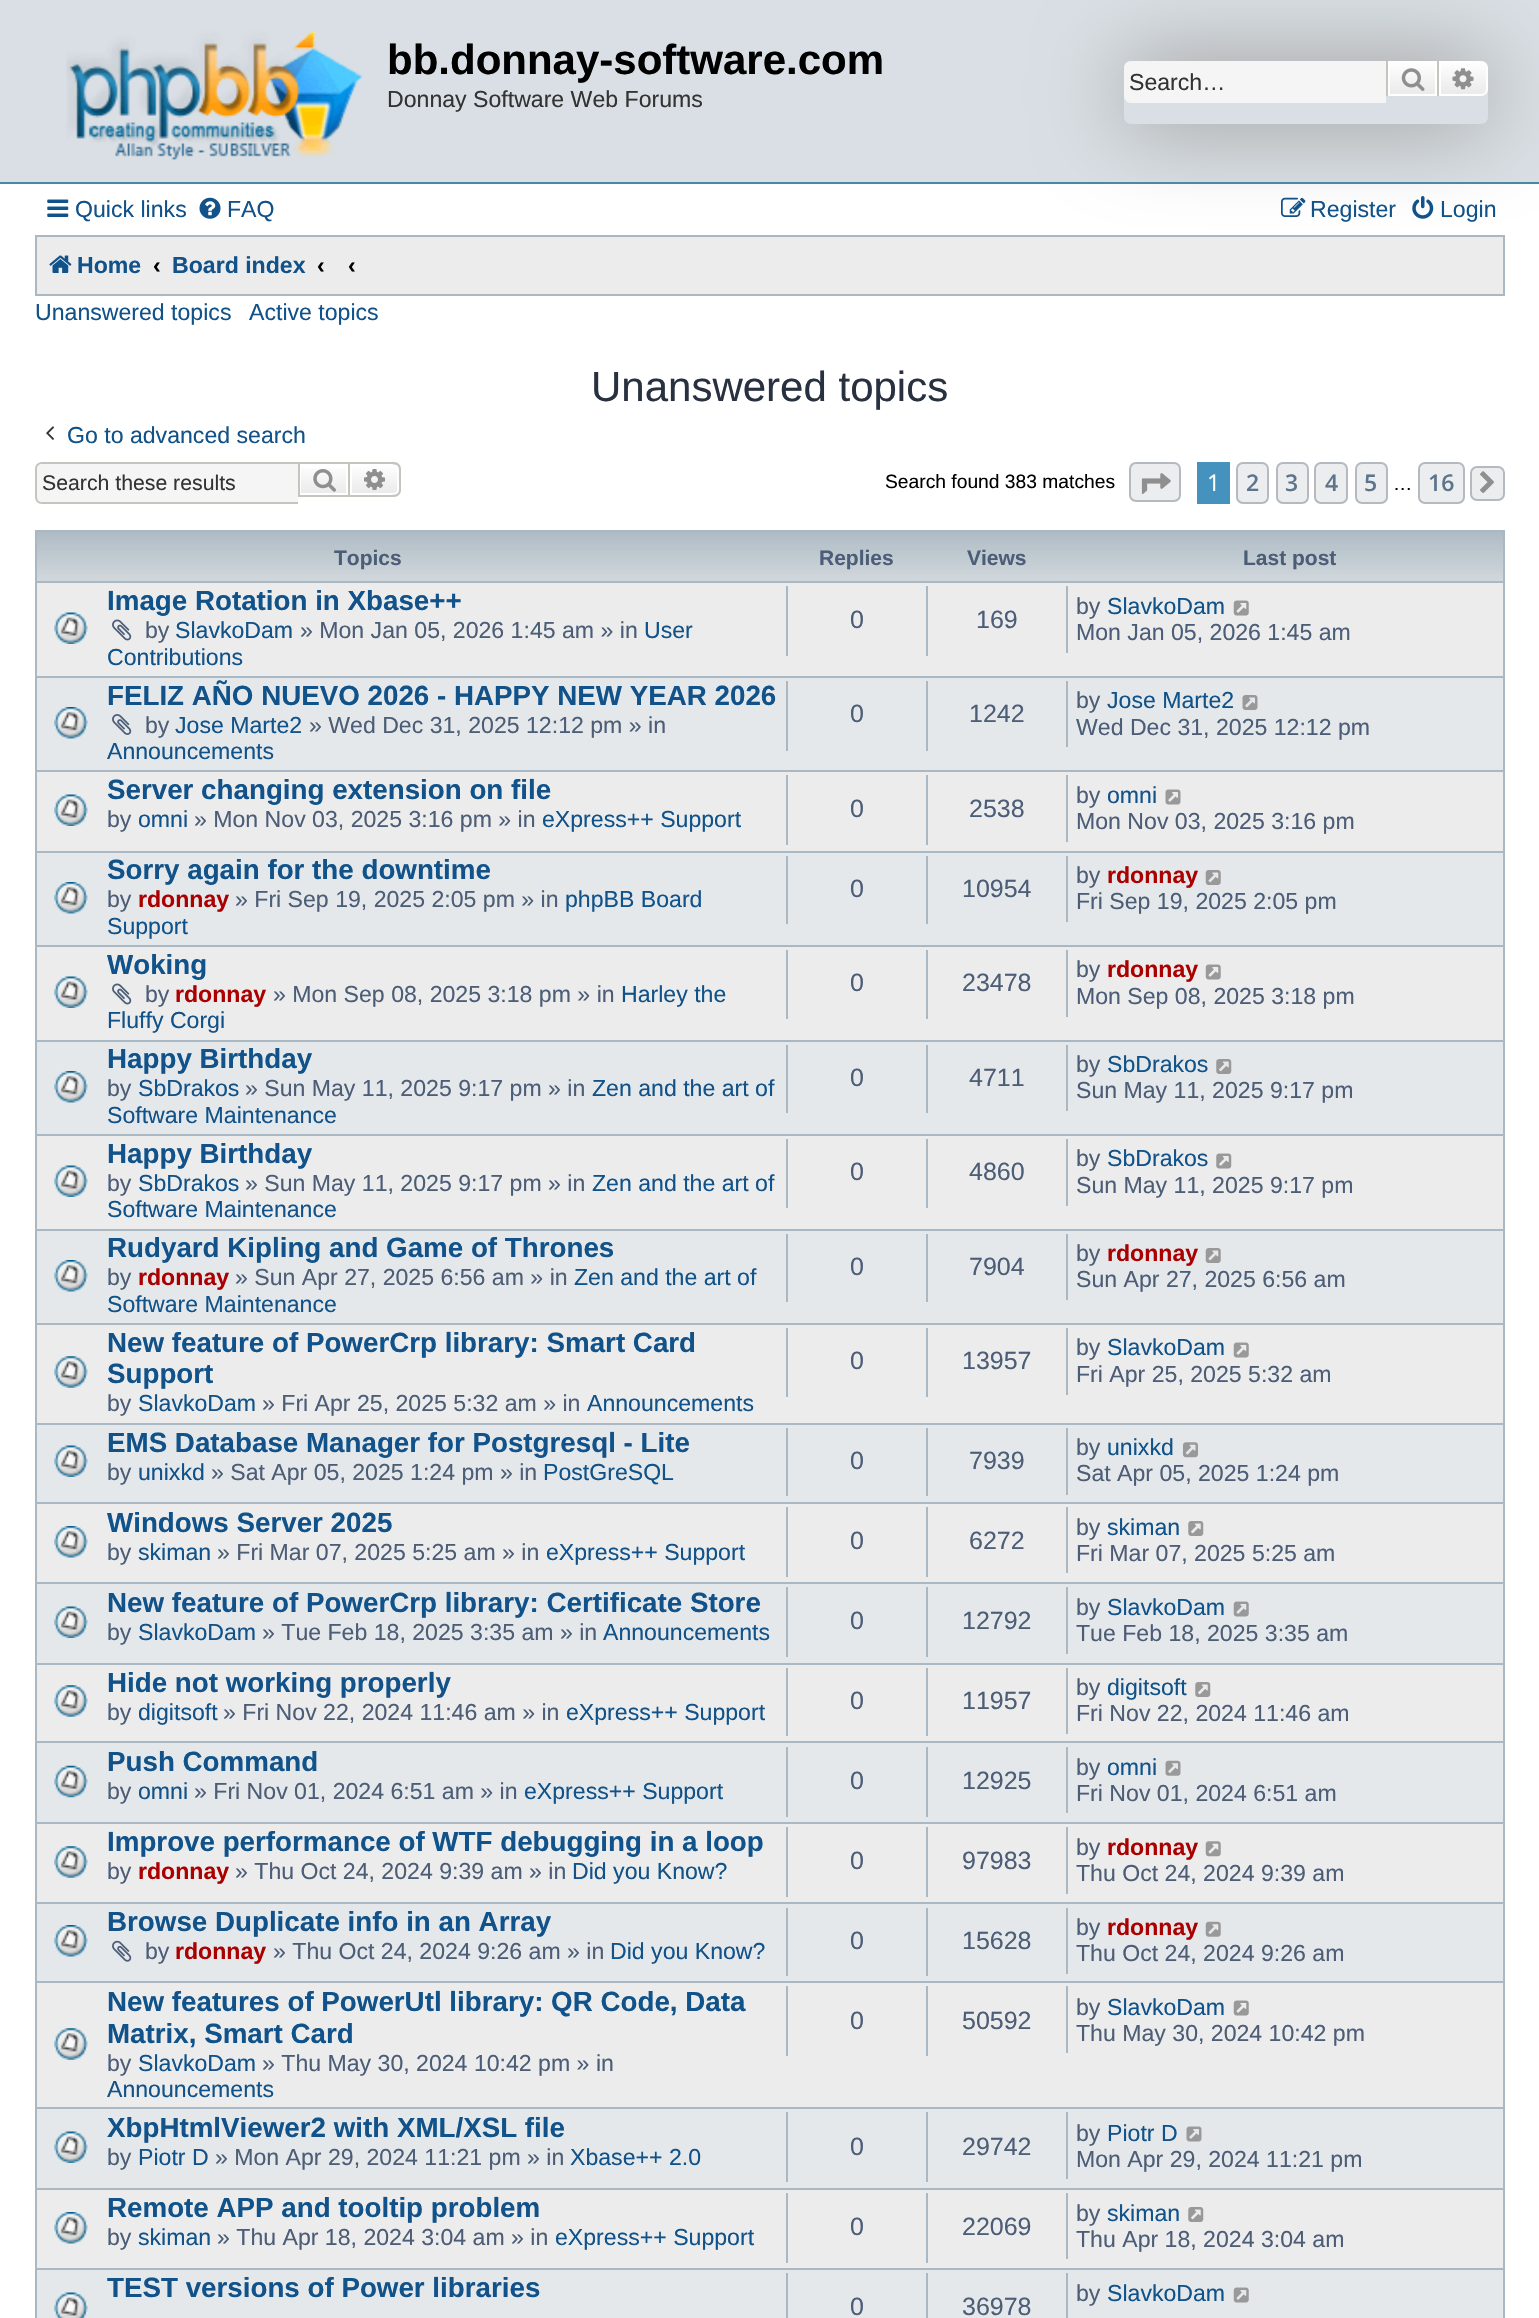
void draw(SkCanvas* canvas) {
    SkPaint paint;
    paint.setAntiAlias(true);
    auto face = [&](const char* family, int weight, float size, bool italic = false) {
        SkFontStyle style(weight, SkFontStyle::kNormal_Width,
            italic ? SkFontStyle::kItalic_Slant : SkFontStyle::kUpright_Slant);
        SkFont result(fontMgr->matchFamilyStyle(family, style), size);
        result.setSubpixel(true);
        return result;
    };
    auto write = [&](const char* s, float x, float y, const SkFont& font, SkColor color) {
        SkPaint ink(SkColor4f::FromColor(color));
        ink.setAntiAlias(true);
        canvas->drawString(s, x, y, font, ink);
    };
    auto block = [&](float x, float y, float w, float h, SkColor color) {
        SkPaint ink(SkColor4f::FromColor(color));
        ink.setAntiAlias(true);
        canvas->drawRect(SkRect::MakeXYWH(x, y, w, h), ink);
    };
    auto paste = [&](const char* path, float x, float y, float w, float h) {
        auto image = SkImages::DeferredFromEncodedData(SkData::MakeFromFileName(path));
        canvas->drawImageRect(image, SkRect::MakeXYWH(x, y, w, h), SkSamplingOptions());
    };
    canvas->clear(SK_ColorWHITE);
    block(0, 0, 1539, 182, SkColorSetRGB(217, 223, 228));
    block(0, 182, 1539, 2, SkColorSetRGB(71, 135, 167));
    paste("pic1.png", 66, 30, 297, 130);
    auto kFont1 = face("Liberation Sans", 700, 42);
    write("bb.donnay-software.com", 387, 74, kFont1, SK_ColorBLACK);
    auto kFont2 = face("Liberation Sans", 400, 23.1f);
    write("Donnay Software Web Forums", 387, 107, kFont2, SkColorSetRGB(51, 51, 51));
    paint.setColor(SkColorSetRGB(236, 236, 236));
    canvas->drawRect(SkRect::MakeXYWH(36, 236, 1468, 59), paint);
    paint.setStyle(SkPaint::kStroke_Style);
    paint.setStrokeWidth(2);
    paint.setColor(SkColorSetRGB(169, 184, 194));
    canvas->drawRect(SkRect::MakeXYWH(36, 236, 1468, 59), paint);
    canvas->save();
    canvas->clipPath(SkPathBuilder(SkPathFillType::kEvenOdd).moveTo(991, 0).lineTo(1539, 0).lineTo(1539, 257).lineTo(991, 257).close().moveTo(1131, 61).lineTo(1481, 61).cubicTo(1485, 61, 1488, 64, 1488, 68).lineTo(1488, 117).cubicTo(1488, 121, 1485, 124, 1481, 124).lineTo(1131, 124).cubicTo(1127, 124, 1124, 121, 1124, 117).lineTo(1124, 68).cubicTo(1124, 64, 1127, 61, 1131, 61).close().detach(), true);
    paint.setStyle(SkPaint::kFill_Style);
    paint.setColor(SkColorSetRGB(153, 153, 153));
    paint.setMaskFilter(SkMaskFilter::MakeBlur(kNormal_SkBlurStyle, 44));
    canvas->drawRoundRect(SkRect::MakeXYWH(1124, 61, 364, 63), 7, 7, paint);
    paint.setMaskFilter(nullptr);
    canvas->restore();
    paint.setColor(SkColorSetRGB(245, 245, 245));
    canvas->drawPath(SkPathBuilder().moveTo(1131, 61).lineTo(1386, 61).lineTo(1386, 103).lineTo(1131, 103).cubicTo(1127, 103, 1124, 100, 1124, 96).lineTo(1124, 68).cubicTo(1124, 64, 1127, 61, 1131, 61).close().detach(), paint);
    write("Search…", 1129, 90, kFont2, SkColorSetRGB(51, 51, 51));
    {
        const SkColor colors[] = {SK_ColorWHITE, SkColorSetRGB(233, 233, 233)};
        const float stops[] = {0, 1};
        const SkPoint ends[] = {{1412, 61}, {1412, 96}};
        paint.setShader(SkGradientShader::MakeLinear(ends, colors, stops, 2, SkTileMode::kClamp));
        paint.setAlpha(255);
    }
    canvas->drawRect(SkRect::MakeXYWH(1390, 63, 45, 31), paint);
    paint.setStyle(SkPaint::kStroke_Style);
    paint.setShader(nullptr);
    paint.setColor(SK_ColorWHITE);
    canvas->drawRect(SkRect::MakeXYWH(1389, 62, 47, 33), paint);
    block(1437, 61, 2, 35, SkColorSetRGB(199, 195, 191));
    block(1386, 61, 2, 35, SkColorSetRGB(199, 195, 191));
    paste("pic2.png", 1401, 68, 24, 23);
    paint.setStyle(SkPaint::kFill_Style);
    {
        const SkColor colors[] = {SK_ColorWHITE, SkColorSetRGB(233, 233, 233)};
        const float stops[] = {0, 1};
        const SkPoint ends[] = {{1463, 61}, {1463, 96}};
        paint.setShader(SkGradientShader::MakeLinear(ends, colors, stops, 2, SkTileMode::kClamp));
        paint.setAlpha(255);
    }
    canvas->drawPath(SkPathBuilder().moveTo(1440, 62).lineTo(1481, 62).cubicTo(1484.5f, 62, 1487, 64.5f, 1487, 68).lineTo(1487, 89).cubicTo(1487, 92.5f, 1484.5f, 95, 1481, 95).lineTo(1440, 95).close().detach(), paint);
    paint.setStyle(SkPaint::kStroke_Style);
    paint.setShader(nullptr);
    paint.setColor(SK_ColorWHITE);
    canvas->drawPath(SkPathBuilder().moveTo(1440, 62).lineTo(1481, 62).cubicTo(1484.5f, 62, 1487, 64.5f, 1487, 68).lineTo(1487, 89).cubicTo(1487, 92.5f, 1484.5f, 95, 1481, 95).lineTo(1440, 95).close().detach(), paint);
    paste("pic3.png", 1452, 68, 22, 22);
    paste("pic4.png", 47, 199, 22, 18);
    write("Quick links", 75, 217, kFont2, SkColorSetRGB(16, 82, 137));
    paste("pic5.png", 199, 197, 22, 22);
    write("FAQ", 227, 217, kFont2, SkColorSetRGB(16, 82, 137));
    paste("pic6.png", 1281, 197, 25, 20);
    write("Register", 1310, 217, kFont2, SkColorSetRGB(16, 82, 137));
    paste("pic7.png", 1412, 196, 22, 23);
    write("Login", 1440, 217, kFont2, SkColorSetRGB(16, 82, 137));
    paste("pic8.png", 49, 255, 23, 18);
    auto kFont3 = face("Liberation Sans", 700, 23.1f);
    write("Home", 77, 273, kFont3, SkColorSetRGB(16, 82, 137));
    write("‹", 153, 273, kFont3, SK_ColorBLACK);
    write("Board index", 172, 273, kFont3, SkColorSetRGB(16, 82, 137));
    write("‹", 317, 273, kFont3, SK_ColorBLACK);
    write("‹", 348, 273, kFont3, SK_ColorBLACK);
    write("Unanswered topics", 35, 320, kFont2, SkColorSetRGB(16, 82, 137));
    write("Active topics", 249, 320, kFont2, SkColorSetRGB(16, 82, 137));
    auto kFont4 = face("Liberation Sans", 400, 42);
    write("Unanswered topics", 591, 401, kFont4, SkColorSetRGB(40, 49, 63));
    paste("pic9.png", 46, 426, 8, 14);
    write("Go to advanced search", 67, 443, kFont2, SkColorSetRGB(16, 82, 137));
    paint.setStyle(SkPaint::kFill_Style);
    paint.setColor(SkColorSetRGB(245, 245, 245));
    canvas->drawPath(SkPathBuilder().moveTo(42, 464).lineTo(298, 464).lineTo(298, 502).lineTo(42, 502).cubicTo(39, 502, 37, 500, 37, 497).lineTo(37, 469).cubicTo(37, 466, 39, 464, 42, 464).close().detach(), paint);
    paint.setColor(SkColorSetRGB(199, 195, 191));
    canvas->drawPath(SkPathBuilder(SkPathFillType::kEvenOdd).moveTo(42, 462).lineTo(298, 462).lineTo(298, 504).lineTo(42, 504).cubicTo(38, 504, 35, 501, 35, 497).lineTo(35, 469).cubicTo(35, 465, 38, 462, 42, 462).close().moveTo(42, 464).lineTo(298, 464).lineTo(298, 502).lineTo(42, 502).cubicTo(39, 502, 37, 500, 37, 497).lineTo(37, 469).cubicTo(37, 466, 39, 464, 42, 464).close().detach(), paint);
    auto kFont5 = face("Liberation Sans", 400, 21.25f);
    write("Search these results", 42, 490, kFont5, SkColorSetRGB(51, 51, 51));
    {
        const SkColor colors[] = {SK_ColorWHITE, SkColorSetRGB(233, 233, 233)};
        const float stops[] = {0, 1};
        const SkPoint ends[] = {{324, 464}, {324, 495}};
        paint.setShader(SkGradientShader::MakeLinear(ends, colors, stops, 2, SkTileMode::kClamp));
        paint.setAlpha(255);
    }
    canvas->drawRect(SkRect::MakeXYWH(301, 468, 45, 25), paint);
    paint.setStyle(SkPaint::kStroke_Style);
    paint.setShader(nullptr);
    paint.setColor(SkColorSetRGB(199, 195, 191));
    canvas->drawRect(SkRect::MakeXYWH(299, 463, 50, 33), paint);
    paste("pic10.png", 313, 469, 23, 23);
    paint.setStyle(SkPaint::kFill_Style);
    {
        const SkColor colors[] = {SK_ColorWHITE, SkColorSetRGB(233, 233, 233)};
        const float stops[] = {0, 1};
        const SkPoint ends[] = {{375, 464}, {375, 495}};
        paint.setShader(SkGradientShader::MakeLinear(ends, colors, stops, 2, SkTileMode::kClamp));
        paint.setAlpha(255);
    }
    canvas->drawPath(SkPathBuilder().moveTo(351, 465).lineTo(394, 465).cubicTo(396, 465, 398, 467, 398, 469).lineTo(398, 490).cubicTo(398, 492, 396, 494, 394, 494).lineTo(351, 494).close().detach(), paint);
    paint.setStyle(SkPaint::kStroke_Style);
    paint.setShader(nullptr);
    paint.setColor(SK_ColorWHITE);
    canvas->drawPath(SkPathBuilder().moveTo(351, 465).lineTo(394, 465).cubicTo(396, 465, 398, 467, 398, 469).lineTo(398, 490).cubicTo(398, 492, 396, 494, 394, 494).lineTo(351, 494).close().detach(), paint);
    paint.setStyle(SkPaint::kFill_Style);
    paint.setColor(SkColorSetRGB(199, 195, 191));
    canvas->drawPath(SkPathBuilder(SkPathFillType::kEvenOdd).moveTo(350, 462).lineTo(394, 462).cubicTo(398, 462, 401, 465, 401, 469).lineTo(401, 490).cubicTo(401, 494, 398, 497, 394, 497).lineTo(350, 497).close().moveTo(350, 464).lineTo(386, 464).cubicTo(401, 464, 399, 465, 399, 480).cubicTo(399, 494, 401, 495, 386, 495).lineTo(350, 495).close().detach(), paint);
    paste("pic11.png", 364, 469, 21, 21);
    auto kFont6 = face("Liberation Sans", 400, 19.25f);
    write("Search found 383 matches", 885, 488, kFont6, SK_ColorBLACK);
    paint.setColor(SkColorSetRGB(236, 237, 238));
    canvas->drawRoundRect(SkRect::MakeXYWH(1130, 463, 50, 38), 6, 6, paint);
    paint.setStyle(SkPaint::kStroke_Style);
    paint.setColor(SkColorSetRGB(180, 186, 192));
    canvas->drawRoundRect(SkRect::MakeXYWH(1130, 463, 50, 38), 6, 6, paint);
    paste("pic12.png", 1141, 473, 30, 22);
    block(1197, 462, 33, 42, SkColorSetRGB(70, 146, 191));
    auto kFont7 = face("Open Sans", 400, 23);
    write("1", 1207, 491, kFont7, SK_ColorWHITE);
    paint.setStyle(SkPaint::kFill_Style);
    paint.setColor(SkColorSetRGB(236, 237, 238));
    canvas->drawRoundRect(SkRect::MakeXYWH(1237, 463, 31, 40), 6, 6, paint);
    paint.setStyle(SkPaint::kStroke_Style);
    paint.setColor(SkColorSetRGB(180, 186, 192));
    canvas->drawRoundRect(SkRect::MakeXYWH(1237, 463, 31, 40), 6, 6, paint);
    auto kFont8 = face("Open Sans", 600, 23);
    write("2", 1246, 491, kFont8, SkColorSetRGB(92, 117, 140));
    paint.setStyle(SkPaint::kFill_Style);
    paint.setColor(SkColorSetRGB(236, 237, 238));
    canvas->drawRoundRect(SkRect::MakeXYWH(1277, 463, 31, 40), 6, 6, paint);
    paint.setStyle(SkPaint::kStroke_Style);
    paint.setColor(SkColorSetRGB(180, 186, 192));
    canvas->drawRoundRect(SkRect::MakeXYWH(1277, 463, 31, 40), 6, 6, paint);
    write("3", 1285, 491, kFont8, SkColorSetRGB(92, 117, 140));
    paint.setStyle(SkPaint::kFill_Style);
    paint.setColor(SkColorSetRGB(236, 237, 238));
    canvas->drawRoundRect(SkRect::MakeXYWH(1315, 463, 32, 40), 6, 6, paint);
    paint.setStyle(SkPaint::kStroke_Style);
    paint.setColor(SkColorSetRGB(180, 186, 192));
    canvas->drawRoundRect(SkRect::MakeXYWH(1315, 463, 32, 40), 6, 6, paint);
    write("4", 1325, 491, kFont8, SkColorSetRGB(92, 117, 140));
    paint.setStyle(SkPaint::kFill_Style);
    paint.setColor(SkColorSetRGB(236, 237, 238));
    canvas->drawRoundRect(SkRect::MakeXYWH(1356, 463, 31, 40), 6, 6, paint);
    paint.setStyle(SkPaint::kStroke_Style);
    paint.setColor(SkColorSetRGB(180, 186, 192));
    canvas->drawRoundRect(SkRect::MakeXYWH(1356, 463, 31, 40), 6, 6, paint);
    write("5", 1364, 491, kFont8, SkColorSetRGB(92, 117, 140));
    write("…", 1393, 490, kFont6, SK_ColorBLACK);
    paint.setStyle(SkPaint::kFill_Style);
    paint.setColor(SkColorSetRGB(236, 237, 238));
    canvas->drawRoundRect(SkRect::MakeXYWH(1419, 463, 45, 40), 6, 6, paint);
    paint.setStyle(SkPaint::kStroke_Style);
    paint.setColor(SkColorSetRGB(180, 186, 192));
    canvas->drawRoundRect(SkRect::MakeXYWH(1419, 463, 45, 40), 6, 6, paint);
    write("16", 1428, 491, kFont8, SkColorSetRGB(92, 117, 140));
    paint.setStyle(SkPaint::kFill_Style);
    paint.setColor(SkColorSetRGB(236, 237, 238));
    canvas->drawRoundRect(SkRect::MakeXYWH(1471, 467, 33, 33), 6, 6, paint);
    paint.setStyle(SkPaint::kStroke_Style);
    paint.setColor(SkColorSetRGB(180, 186, 192));
    canvas->drawRoundRect(SkRect::MakeXYWH(1471, 467, 33, 33), 6, 6, paint);
    paste("pic13.png", 1480, 471, 14, 22);
    block(37, 772, 1466, 1496, SkColorSetRGB(236, 236, 236));
    paste("pic14.png", 37, 532, 1466, 49);
    paint.setColor(SkColorSetRGB(169, 184, 194));
    canvas->drawRect(SkRect::MakeXYWH(36, 531, 1468, 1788), paint);
    auto kFont9 = face("Liberation Sans", 700, 21);
    write("Topics", 334, 565, kFont9, SkColorSetRGB(76, 93, 119));
    write("Replies", 819, 565, kFont9, SkColorSetRGB(76, 93, 119));
    write("Views", 967, 565, kFont9, SkColorSetRGB(76, 93, 119));
    write("Last post", 1243, 565, kFont9, SkColorSetRGB(76, 93, 119));
    block(37, 583, 1466, 93, SkColorSetRGB(236, 236, 236));
    block(37, 581, 1466, 2, SkColorSetRGB(169, 184, 194));
    paste("pic15.png", 54, 612, 34, 32);
    auto kFont10 = face("Liberation Sans", 700, 27.75f);
    write("Image Rotation in Xbase++", 107, 610, kFont10, SkColorSetRGB(16, 82, 137));
    paste("pic16.png", 112, 619, 20, 22);
    write("by", 145, 638, kFont2, SkColorSetRGB(76, 93, 119));
    write("SlavkoDam", 175, 638, kFont2, SkColorSetRGB(16, 82, 137));
    write("» Mon Jan 05, 2026 1:45 am » in", 300, 638, kFont2, SkColorSetRGB(76, 93, 119));
    write("User", 644, 638, kFont2, SkColorSetRGB(16, 82, 137));
    write("Contributions", 107, 665, kFont2, SkColorSetRGB(16, 82, 137));
    block(786, 586, 2, 70, SkColorSetRGB(169, 184, 194));
    auto kFont11 = face("Liberation Sans", 400, 25);
    write("0", 850, 628, kFont11, SkColorSetRGB(76, 93, 119));
    block(926, 586, 2, 70, SkColorSetRGB(169, 184, 194));
    write("169", 976, 628, kFont11, SkColorSetRGB(76, 93, 119));
    block(1066, 586, 2, 67, SkColorSetRGB(169, 184, 194));
    write("by", 1076, 614, kFont2, SkColorSetRGB(76, 93, 119));
    write("SlavkoDam", 1107, 614, kFont2, SkColorSetRGB(16, 82, 137));
    paste("pic17.png", 1233, 600, 16, 16);
    write("Mon Jan 05, 2026 1:45 am", 1076, 640, kFont2, SkColorSetRGB(76, 93, 119));
    block(37, 678, 1466, 92, SkColorSetRGB(229, 232, 234));
    block(37, 676, 1466, 2, SkColorSetRGB(169, 184, 194));
    paste("pic18.png", 54, 707, 34, 32);
    write("FELIZ AÑO NUEVO 2026 - HAPPY NEW YEAR 2026", 107, 705, kFont10, SkColorSetRGB(16, 82, 137));
    paste("pic19.png", 112, 714, 20, 21);
    write("by", 145, 733, kFont2, SkColorSetRGB(76, 93, 119));
    write("Jose Marte2", 175, 733, kFont2, SkColorSetRGB(16, 82, 137));
    write("» Wed Dec 31, 2025 12:12 pm » in", 309, 733, kFont2, SkColorSetRGB(76, 93, 119));
    write("Announcements", 107, 759, kFont2, SkColorSetRGB(16, 82, 137));
    block(786, 681, 2, 70, SkColorSetRGB(169, 184, 194));
    write("0", 850, 722, kFont11, SkColorSetRGB(76, 93, 119));
    block(926, 681, 2, 70, SkColorSetRGB(169, 184, 194));
    write("1242", 969, 722, kFont11, SkColorSetRGB(76, 93, 119));
    block(1066, 681, 2, 66, SkColorSetRGB(169, 184, 194));
    write("by", 1076, 708, kFont2, SkColorSetRGB(76, 93, 119));
    write("Jose Marte2", 1107, 708, kFont2, SkColorSetRGB(16, 82, 137));
    paste("pic20.png", 1242, 695, 16, 15);
    write("Wed Dec 31, 2025 12:12 pm", 1076, 735, kFont2, SkColorSetRGB(76, 93, 119));
    block(37, 770, 1466, 2, SkColorSetRGB(169, 184, 194));
    paste("pic15.png", 54, 794, 34, 32);
    write("Server changing extension on file", 107, 799, kFont10, SkColorSetRGB(16, 82, 137));
    write("by", 107, 827, kFont2, SkColorSetRGB(76, 93, 119));
    write("omni", 138, 827, kFont2, SkColorSetRGB(16, 82, 137));
    write("» Mon Nov 03, 2025 3:16 pm » in", 194, 827, kFont2, SkColorSetRGB(76, 93, 119));
    write("eXpress++ Support", 542, 827, kFont2, SkColorSetRGB(16, 82, 137));
    block(786, 775, 2, 70, SkColorSetRGB(169, 184, 194));
    write("0", 850, 817, kFont11, SkColorSetRGB(76, 93, 119));
    block(926, 775, 2, 70, SkColorSetRGB(169, 184, 194));
    write("2538", 969, 817, kFont11, SkColorSetRGB(76, 93, 119));
    block(1066, 775, 2, 67, SkColorSetRGB(169, 184, 194));
    write("by", 1076, 803, kFont2, SkColorSetRGB(76, 93, 119));
    write("omni", 1107, 803, kFont2, SkColorSetRGB(16, 82, 137));
    paste("pic21.png", 1165, 789, 16, 16);
    write("Mon Nov 03, 2025 3:16 pm", 1076, 829, kFont2, SkColorSetRGB(76, 93, 119));
    block(37, 853, 1466, 92, SkColorSetRGB(229, 232, 234));
    block(37, 851, 1466, 2, SkColorSetRGB(169, 184, 194));
    paste("pic18.png", 54, 882, 34, 32);
    write("Sorry again for the downtime", 107, 879, kFont10, SkColorSetRGB(16, 82, 137));
    write("by", 107, 907, kFont2, SkColorSetRGB(76, 93, 119));
    write("rdonnay", 138, 907, kFont3, SkColorSetRGB(170, 0, 0));
    write("» Fri Sep 19, 2025 2:05 pm » in", 235, 907, kFont2, SkColorSetRGB(76, 93, 119));
    write("phpBB Board", 565, 907, kFont2, SkColorSetRGB(16, 82, 137));
    write("Support", 107, 934, kFont2, SkColorSetRGB(16, 82, 137));
    block(786, 856, 2, 68, SkColorSetRGB(169, 184, 194));
    write("0", 850, 897, kFont11, SkColorSetRGB(76, 93, 119));
    block(926, 856, 2, 68, SkColorSetRGB(169, 184, 194));
    write("10954", 962, 897, kFont11, SkColorSetRGB(76, 93, 119));
    block(1066, 856, 2, 66, SkColorSetRGB(169, 184, 194));
    write("by", 1076, 883, kFont2, SkColorSetRGB(76, 93, 119));
    write("rdonnay", 1107, 883, kFont3, SkColorSetRGB(170, 0, 0));
    paste("pic22.png", 1205, 870, 16, 15);
    write("Fri Sep 19, 2025 2:05 pm", 1076, 909, kFont2, SkColorSetRGB(76, 93, 119));
    block(37, 945, 1466, 2, SkColorSetRGB(169, 184, 194));
    paste("pic15.png", 54, 976, 34, 32);
    write("Woking", 107, 974, kFont10, SkColorSetRGB(16, 82, 137));
    paste("pic16.png", 112, 983, 20, 22);
    write("by", 145, 1002, kFont2, SkColorSetRGB(76, 93, 119));
    write("rdonnay", 175, 1002, kFont3, SkColorSetRGB(170, 0, 0));
    write("» Mon Sep 08, 2025 3:18 pm » in", 273, 1002, kFont2, SkColorSetRGB(76, 93, 119));
    write("Harley the", 621, 1002, kFont2, SkColorSetRGB(16, 82, 137));
    write("Fluffy Corgi", 107, 1028, kFont2, SkColorSetRGB(16, 82, 137));
    block(786, 950, 2, 69, SkColorSetRGB(169, 184, 194));
    write("0", 850, 991, kFont11, SkColorSetRGB(76, 93, 119));
    block(926, 950, 2, 69, SkColorSetRGB(169, 184, 194));
    write("23478", 962, 991, kFont11, SkColorSetRGB(76, 93, 119));
    block(1066, 950, 2, 67, SkColorSetRGB(169, 184, 194));
    write("by", 1076, 977, kFont2, SkColorSetRGB(76, 93, 119));
    write("rdonnay", 1107, 977, kFont3, SkColorSetRGB(170, 0, 0));
    paste("pic23.png", 1205, 964, 16, 16);
    write("Mon Sep 08, 2025 3:18 pm", 1076, 1004, kFont2, SkColorSetRGB(76, 93, 119));
    block(37, 1042, 1466, 92, SkColorSetRGB(229, 232, 234));
    block(37, 1040, 1466, 2, SkColorSetRGB(169, 184, 194));
    paste("pic18.png", 54, 1071, 34, 32);
    write("Happy Birthday", 107, 1068, kFont10, SkColorSetRGB(16, 82, 137));
    write("by", 107, 1096, kFont2, SkColorSetRGB(76, 93, 119));
    write("SbDrakos", 138, 1096, kFont2, SkColorSetRGB(16, 82, 137));
    write("» Sun May 11, 2025 9:17 pm » in", 245, 1096, kFont2, SkColorSetRGB(76, 93, 119));
    write("Zen and the art of", 592, 1096, kFont2, SkColorSetRGB(16, 82, 137));
    write("Software Maintenance", 107, 1123, kFont2, SkColorSetRGB(16, 82, 137));
    block(786, 1045, 2, 68, SkColorSetRGB(169, 184, 194));
    write("0", 850, 1086, kFont11, SkColorSetRGB(76, 93, 119));
    block(926, 1045, 2, 68, SkColorSetRGB(169, 184, 194));
    write("4711", 969, 1086, kFont11, SkColorSetRGB(76, 93, 119));
    block(1066, 1045, 2, 66, SkColorSetRGB(169, 184, 194));
    write("by", 1076, 1072, kFont2, SkColorSetRGB(76, 93, 119));
    write("SbDrakos", 1107, 1072, kFont2, SkColorSetRGB(16, 82, 137));
    paste("pic24.png", 1216, 1059, 16, 15);
    write("Sun May 11, 2025 9:17 pm", 1076, 1098, kFont2, SkColorSetRGB(76, 93, 119));
    block(37, 1134, 1466, 2, SkColorSetRGB(169, 184, 194));
    paste("pic15.png", 54, 1165, 34, 32);
    write("Happy Birthday", 107, 1163, kFont10, SkColorSetRGB(16, 82, 137));
    write("by", 107, 1191, kFont2, SkColorSetRGB(76, 93, 119));
    write("SbDrakos", 138, 1191, kFont2, SkColorSetRGB(16, 82, 137));
    write("» Sun May 11, 2025 9:17 pm » in", 245, 1191, kFont2, SkColorSetRGB(76, 93, 119));
    write("Zen and the art of", 592, 1191, kFont2, SkColorSetRGB(16, 82, 137));
    write("Software Maintenance", 107, 1217, kFont2, SkColorSetRGB(16, 82, 137));
    block(786, 1139, 2, 69, SkColorSetRGB(169, 184, 194));
    write("0", 850, 1180, kFont11, SkColorSetRGB(76, 93, 119));
    block(926, 1139, 2, 69, SkColorSetRGB(169, 184, 194));
    write("4860", 969, 1180, kFont11, SkColorSetRGB(76, 93, 119));
    block(1066, 1139, 2, 67, SkColorSetRGB(169, 184, 194));
    write("by", 1076, 1166, kFont2, SkColorSetRGB(76, 93, 119));
    write("SbDrakos", 1107, 1166, kFont2, SkColorSetRGB(16, 82, 137));
    paste("pic25.png", 1216, 1153, 16, 16);
    write("Sun May 11, 2025 9:17 pm", 1076, 1193, kFont2, SkColorSetRGB(76, 93, 119));
    block(37, 1231, 1466, 92, SkColorSetRGB(229, 232, 234));
    block(37, 1229, 1466, 2, SkColorSetRGB(169, 184, 194));
    paste("pic18.png", 54, 1260, 34, 32);
    write("Rudyard Kipling and Game of Thrones", 107, 1257, kFont10, SkColorSetRGB(16, 82, 137));
    write("by", 107, 1285, kFont2, SkColorSetRGB(76, 93, 119));
    write("rdonnay", 138, 1285, kFont3, SkColorSetRGB(170, 0, 0));
    write("» Sun Apr 27, 2025 6:56 am » in", 235, 1285, kFont2, SkColorSetRGB(76, 93, 119));
    write("Zen and the art of", 574, 1285, kFont2, SkColorSetRGB(16, 82, 137));
    write("Software Maintenance", 107, 1312, kFont2, SkColorSetRGB(16, 82, 137));
    block(786, 1234, 2, 68, SkColorSetRGB(169, 184, 194));
    write("0", 850, 1275, kFont11, SkColorSetRGB(76, 93, 119));
    block(926, 1234, 2, 68, SkColorSetRGB(169, 184, 194));
    write("7904", 969, 1275, kFont11, SkColorSetRGB(76, 93, 119));
    block(1066, 1234, 2, 66, SkColorSetRGB(169, 184, 194));
    write("by", 1076, 1261, kFont2, SkColorSetRGB(76, 93, 119));
    write("rdonnay", 1107, 1261, kFont3, SkColorSetRGB(170, 0, 0));
    paste("pic22.png", 1205, 1248, 16, 15);
    write("Sun Apr 27, 2025 6:56 am", 1076, 1287, kFont2, SkColorSetRGB(76, 93, 119));
    block(37, 1323, 1466, 2, SkColorSetRGB(169, 184, 194));
    paste("pic26.png", 54, 1356, 34, 32);
    write("New feature of PowerCrp library: Smart Card", 107, 1352, kFont10, SkColorSetRGB(16, 82, 137));
    write("Support", 107, 1383, kFont10, SkColorSetRGB(16, 82, 137));
    write("by", 107, 1411, kFont2, SkColorSetRGB(76, 93, 119));
    write("SlavkoDam", 138, 1411, kFont2, SkColorSetRGB(16, 82, 137));
    write("» Fri Apr 25, 2025 5:32 am » in", 262, 1411, kFont2, SkColorSetRGB(76, 93, 119));
    write("Announcements", 587, 1411, kFont2, SkColorSetRGB(16, 82, 137));
    block(786, 1328, 2, 69, SkColorSetRGB(169, 184, 194));
    write("0", 850, 1369, kFont11, SkColorSetRGB(76, 93, 119));
    block(926, 1328, 2, 69, SkColorSetRGB(169, 184, 194));
    write("13957", 962, 1369, kFont11, SkColorSetRGB(76, 93, 119));
    block(1066, 1328, 2, 67, SkColorSetRGB(169, 184, 194));
    write("by", 1076, 1355, kFont2, SkColorSetRGB(76, 93, 119));
    write("SlavkoDam", 1107, 1355, kFont2, SkColorSetRGB(16, 82, 137));
    paste("pic17.png", 1233, 1342, 16, 16);
    write("Fri Apr 25, 2025 5:32 am", 1076, 1382, kFont2, SkColorSetRGB(76, 93, 119));
    block(37, 1425, 1466, 77, SkColorSetRGB(229, 232, 234));
    block(37, 1423, 1466, 2, SkColorSetRGB(169, 184, 194));
    paste("pic27.png", 54, 1445, 34, 32);
    write("EMS Database Manager for Postgresql - Lite", 107, 1452, kFont10, SkColorSetRGB(16, 82, 137));
    write("by", 107, 1480, kFont2, SkColorSetRGB(76, 93, 119));
    write("unixkd", 138, 1480, kFont2, SkColorSetRGB(16, 82, 137));
    write("» Sat Apr 05, 2025 1:24 pm » in", 211, 1480, kFont2, SkColorSetRGB(76, 93, 119));
    write("PostGreSQL", 543, 1480, kFont2, SkColorSetRGB(16, 82, 137));
    block(786, 1428, 2, 68, SkColorSetRGB(169, 184, 194));
    write("0", 850, 1469, kFont11, SkColorSetRGB(76, 93, 119));
    block(926, 1428, 2, 68, SkColorSetRGB(169, 184, 194));
    write("7939", 969, 1469, kFont11, SkColorSetRGB(76, 93, 119));
    block(1066, 1428, 2, 67, SkColorSetRGB(169, 184, 194));
    write("by", 1076, 1455, kFont2, SkColorSetRGB(76, 93, 119));
    write("unixkd", 1107, 1455, kFont2, SkColorSetRGB(16, 82, 137));
    paste("pic28.png", 1183, 1442, 15, 16);
    write("Sat Apr 05, 2025 1:24 pm", 1076, 1481, kFont2, SkColorSetRGB(76, 93, 119));
    block(37, 1502, 1466, 2, SkColorSetRGB(169, 184, 194));
    paste("pic29.png", 54, 1526, 34, 32);
    write("Windows Server 2025", 107, 1532, kFont10, SkColorSetRGB(16, 82, 137));
    write("by", 107, 1560, kFont2, SkColorSetRGB(76, 93, 119));
    write("skiman", 138, 1560, kFont2, SkColorSetRGB(16, 82, 137));
    write("» Fri Mar 07, 2025 5:25 am » in", 217, 1560, kFont2, SkColorSetRGB(76, 93, 119));
    write("eXpress++ Support", 546, 1560, kFont2, SkColorSetRGB(16, 82, 137));
    block(786, 1507, 2, 70, SkColorSetRGB(169, 184, 194));
    write("0", 850, 1549, kFont11, SkColorSetRGB(76, 93, 119));
    block(926, 1507, 2, 70, SkColorSetRGB(169, 184, 194));
    write("6272", 969, 1549, kFont11, SkColorSetRGB(76, 93, 119));
    block(1066, 1507, 2, 66, SkColorSetRGB(169, 184, 194));
    write("by", 1076, 1535, kFont2, SkColorSetRGB(76, 93, 119));
    write("skiman", 1107, 1535, kFont2, SkColorSetRGB(16, 82, 137));
    paste("pic30.png", 1188, 1521, 16, 15);
    write("Fri Mar 07, 2025 5:25 am", 1076, 1561, kFont2, SkColorSetRGB(76, 93, 119));
    block(37, 1584, 1466, 79, SkColorSetRGB(229, 232, 234));
    block(37, 1582, 1466, 2, SkColorSetRGB(169, 184, 194));
    paste("pic27.png", 54, 1606, 34, 32);
    write("New feature of PowerCrp library: Certificate Store", 107, 1612, kFont10, SkColorSetRGB(16, 82, 137));
    write("by", 107, 1640, kFont2, SkColorSetRGB(76, 93, 119));
    write("SlavkoDam", 138, 1640, kFont2, SkColorSetRGB(16, 82, 137));
    write("» Tue Feb 18, 2025 3:35 am » in", 262, 1640, kFont2, SkColorSetRGB(76, 93, 119));
    write("Announcements", 603, 1640, kFont2, SkColorSetRGB(16, 82, 137));
    block(786, 1587, 2, 70, SkColorSetRGB(169, 184, 194));
    write("0", 850, 1629, kFont11, SkColorSetRGB(76, 93, 119));
    block(926, 1587, 2, 70, SkColorSetRGB(169, 184, 194));
    write("12792", 962, 1629, kFont11, SkColorSetRGB(76, 93, 119));
    block(1066, 1587, 2, 67, SkColorSetRGB(169, 184, 194));
    write("by", 1076, 1615, kFont2, SkColorSetRGB(76, 93, 119));
    write("SlavkoDam", 1107, 1615, kFont2, SkColorSetRGB(16, 82, 137));
    paste("pic31.png", 1233, 1601, 16, 16);
    write("Tue Feb 18, 2025 3:35 am", 1076, 1641, kFont2, SkColorSetRGB(76, 93, 119));
    block(37, 1663, 1466, 2, SkColorSetRGB(169, 184, 194));
    paste("pic26.png", 54, 1685, 34, 32);
    write("Hide not working properly", 107, 1692, kFont10, SkColorSetRGB(16, 82, 137));
    write("by", 107, 1720, kFont2, SkColorSetRGB(76, 93, 119));
    write("digitsoft", 138, 1720, kFont2, SkColorSetRGB(16, 82, 137));
    write("» Fri Nov 22, 2024 11:46 am » in", 223, 1720, kFont2, SkColorSetRGB(76, 93, 119));
    write("eXpress++ Support", 566, 1720, kFont2, SkColorSetRGB(16, 82, 137));
    block(786, 1668, 2, 68, SkColorSetRGB(169, 184, 194));
    write("0", 850, 1709, kFont11, SkColorSetRGB(76, 93, 119));
    block(926, 1668, 2, 68, SkColorSetRGB(169, 184, 194));
    write("11957", 962, 1709, kFont11, SkColorSetRGB(76, 93, 119));
    block(1066, 1668, 2, 66, SkColorSetRGB(169, 184, 194));
    write("by", 1076, 1695, kFont2, SkColorSetRGB(76, 93, 119));
    write("digitsoft", 1107, 1695, kFont2, SkColorSetRGB(16, 82, 137));
    paste("pic30.png", 1195, 1682, 16, 15);
    write("Fri Nov 22, 2024 11:46 am", 1076, 1721, kFont2, SkColorSetRGB(76, 93, 119));
    block(37, 1743, 1466, 79, SkColorSetRGB(229, 232, 234));
    block(37, 1741, 1466, 2, SkColorSetRGB(169, 184, 194));
    paste("pic32.png", 54, 1765, 34, 33);
    write("Push Command", 107, 1771, kFont10, SkColorSetRGB(16, 82, 137));
    write("by", 107, 1799, kFont2, SkColorSetRGB(76, 93, 119));
    write("omni", 138, 1799, kFont2, SkColorSetRGB(16, 82, 137));
    write("» Fri Nov 01, 2024 6:51 am » in", 194, 1799, kFont2, SkColorSetRGB(76, 93, 119));
    write("eXpress++ Support", 524, 1799, kFont2, SkColorSetRGB(16, 82, 137));
    block(786, 1747, 2, 70, SkColorSetRGB(169, 184, 194));
    write("0", 850, 1789, kFont11, SkColorSetRGB(76, 93, 119));
    block(926, 1747, 2, 70, SkColorSetRGB(169, 184, 194));
    write("12925", 962, 1789, kFont11, SkColorSetRGB(76, 93, 119));
    block(1066, 1747, 2, 66, SkColorSetRGB(169, 184, 194));
    write("by", 1076, 1775, kFont2, SkColorSetRGB(76, 93, 119));
    write("omni", 1107, 1775, kFont2, SkColorSetRGB(16, 82, 137));
    paste("pic33.png", 1165, 1760, 16, 16);
    write("Fri Nov 01, 2024 6:51 am", 1076, 1801, kFont2, SkColorSetRGB(76, 93, 119));
    block(37, 1822, 1466, 2, SkColorSetRGB(169, 184, 194));
    paste("pic26.png", 54, 1846, 34, 32);
    write("Improve performance of WTF debugging in a loop", 107, 1851, kFont10, SkColorSetRGB(16, 82, 137));
    write("by", 107, 1879, kFont2, SkColorSetRGB(76, 93, 119));
    write("rdonnay", 138, 1879, kFont3, SkColorSetRGB(170, 0, 0));
    write("» Thu Oct 24, 2024 9:39 am » in", 235, 1879, kFont2, SkColorSetRGB(76, 93, 119));
    write("Did you Know?", 572, 1879, kFont2, SkColorSetRGB(16, 82, 137));
    block(786, 1827, 2, 70, SkColorSetRGB(169, 184, 194));
    write("0", 850, 1869, kFont11, SkColorSetRGB(76, 93, 119));
    block(926, 1827, 2, 70, SkColorSetRGB(169, 184, 194));
    write("97983", 962, 1869, kFont11, SkColorSetRGB(76, 93, 119));
    block(1066, 1827, 2, 67, SkColorSetRGB(169, 184, 194));
    write("by", 1076, 1855, kFont2, SkColorSetRGB(76, 93, 119));
    write("rdonnay", 1107, 1855, kFont3, SkColorSetRGB(170, 0, 0));
    paste("pic34.png", 1205, 1841, 16, 16);
    write("Thu Oct 24, 2024 9:39 am", 1076, 1881, kFont2, SkColorSetRGB(76, 93, 119));
    block(37, 1904, 1466, 77, SkColorSetRGB(229, 232, 234));
    block(37, 1902, 1466, 2, SkColorSetRGB(169, 184, 194));
    paste("pic18.png", 54, 1925, 34, 32);
    write("Browse Duplicate info in an Array", 107, 1931, kFont10, SkColorSetRGB(16, 82, 137));
    paste("pic35.png", 112, 1940, 20, 22);
    write("by", 145, 1959, kFont2, SkColorSetRGB(76, 93, 119));
    write("rdonnay", 175, 1959, kFont3, SkColorSetRGB(170, 0, 0));
    write("» Thu Oct 24, 2024 9:26 am » in", 273, 1959, kFont2, SkColorSetRGB(76, 93, 119));
    write("Did you Know?", 610, 1959, kFont2, SkColorSetRGB(16, 82, 137));
    block(786, 1908, 2, 68, SkColorSetRGB(169, 184, 194));
    write("0", 850, 1949, kFont11, SkColorSetRGB(76, 93, 119));
    block(926, 1908, 2, 68, SkColorSetRGB(169, 184, 194));
    write("15628", 962, 1949, kFont11, SkColorSetRGB(76, 93, 119));
    block(1066, 1908, 2, 66, SkColorSetRGB(169, 184, 194));
    write("by", 1076, 1935, kFont2, SkColorSetRGB(76, 93, 119));
    write("rdonnay", 1107, 1935, kFont3, SkColorSetRGB(170, 0, 0));
    paste("pic36.png", 1205, 1921, 16, 16);
    write("Thu Oct 24, 2024 9:26 am", 1076, 1961, kFont2, SkColorSetRGB(76, 93, 119));
    block(37, 1981, 1466, 2, SkColorSetRGB(169, 184, 194));
    paste("pic26.png", 54, 2028, 34, 32);
    write("New features of PowerUtl library: QR Code, Data", 107, 2011, kFont10, SkColorSetRGB(16, 82, 137));
    write("Matrix, Smart Card", 107, 2043, kFont10, SkColorSetRGB(16, 82, 137));
    write("by", 107, 2071, kFont2, SkColorSetRGB(76, 93, 119));
    write("SlavkoDam", 138, 2071, kFont2, SkColorSetRGB(16, 82, 137));
    write("» Thu May 30, 2024 10:42 pm » in", 262, 2071, kFont2, SkColorSetRGB(76, 93, 119));
    write("Announcements", 107, 2097, kFont2, SkColorSetRGB(16, 82, 137));
    block(786, 1986, 2, 70, SkColorSetRGB(169, 184, 194));
    write("0", 850, 2029, kFont11, SkColorSetRGB(76, 93, 119));
    block(926, 1986, 2, 70, SkColorSetRGB(169, 184, 194));
    write("50592", 962, 2029, kFont11, SkColorSetRGB(76, 93, 119));
    block(1066, 1986, 2, 67, SkColorSetRGB(169, 184, 194));
    write("by", 1076, 2015, kFont2, SkColorSetRGB(76, 93, 119));
    write("SlavkoDam", 1107, 2015, kFont2, SkColorSetRGB(16, 82, 137));
    paste("pic37.png", 1233, 2000, 16, 16);
    write("Thu May 30, 2024 10:42 pm", 1076, 2041, kFont2, SkColorSetRGB(76, 93, 119));
    block(37, 2109, 1466, 79, SkColorSetRGB(229, 232, 234));
    block(37, 2107, 1466, 2, SkColorSetRGB(169, 184, 194));
    paste("pic27.png", 54, 2131, 34, 32);
    write("XbpHtmlViewer2 with XML/XSL file", 107, 2137, kFont10, SkColorSetRGB(16, 82, 137));
    write("by", 107, 2165, kFont2, SkColorSetRGB(76, 93, 119));
    write("Piotr D", 138, 2165, kFont2, SkColorSetRGB(16, 82, 137));
    write("» Mon Apr 29, 2024 11:21 pm » in", 215, 2165, kFont2, SkColorSetRGB(76, 93, 119));
    write("Xbase++ 2.0", 570, 2165, kFont2, SkColorSetRGB(16, 82, 137));
    block(786, 2112, 2, 70, SkColorSetRGB(169, 184, 194));
    write("0", 850, 2155, kFont11, SkColorSetRGB(76, 93, 119));
    block(926, 2112, 2, 70, SkColorSetRGB(169, 184, 194));
    write("29742", 962, 2155, kFont11, SkColorSetRGB(76, 93, 119));
    block(1066, 2112, 2, 67, SkColorSetRGB(169, 184, 194));
    write("by", 1076, 2141, kFont2, SkColorSetRGB(76, 93, 119));
    write("Piotr D", 1107, 2141, kFont2, SkColorSetRGB(16, 82, 137));
    paste("pic38.png", 1186, 2126, 16, 16);
    write("Mon Apr 29, 2024 11:21 pm", 1076, 2167, kFont2, SkColorSetRGB(76, 93, 119));
    block(37, 2188, 1466, 2, SkColorSetRGB(169, 184, 194));
    paste("pic29.png", 54, 2212, 34, 32);
    write("Remote APP and tooltip problem", 107, 2217, kFont10, SkColorSetRGB(16, 82, 137));
    write("by", 107, 2245, kFont2, SkColorSetRGB(76, 93, 119));
    write("skiman", 138, 2245, kFont2, SkColorSetRGB(16, 82, 137));
    write("» Thu Apr 18, 2024 3:04 am » in", 217, 2245, kFont2, SkColorSetRGB(76, 93, 119));
    write("eXpress++ Support", 555, 2245, kFont2, SkColorSetRGB(16, 82, 137));
    block(786, 2193, 2, 70, SkColorSetRGB(169, 184, 194));
    write("0", 850, 2235, kFont11, SkColorSetRGB(76, 93, 119));
    block(926, 2193, 2, 70, SkColorSetRGB(169, 184, 194));
    write("22069", 962, 2235, kFont11, SkColorSetRGB(76, 93, 119));
    block(1066, 2193, 2, 66, SkColorSetRGB(169, 184, 194));
    write("by", 1076, 2221, kFont2, SkColorSetRGB(76, 93, 119));
    write("skiman", 1107, 2221, kFont2, SkColorSetRGB(16, 82, 137));
    paste("pic30.png", 1188, 2207, 16, 15);
    write("Thu Apr 18, 2024 3:04 am", 1076, 2247, kFont2, SkColorSetRGB(76, 93, 119));
    block(37, 2270, 1466, 48, SkColorSetRGB(229, 232, 234));
    block(37, 2268, 1466, 2, SkColorSetRGB(169, 184, 194));
    paste("pic39.png", 54, 2292, 34, 26);
    write("TEST versions of Power libraries", 107, 2297, kFont10, SkColorSetRGB(16, 82, 137));
    block(786, 2273, 2, 45, SkColorSetRGB(169, 184, 194));
    write("0", 850, 2315, kFont11, SkColorSetRGB(76, 93, 119));
    block(926, 2273, 2, 45, SkColorSetRGB(169, 184, 194));
    write("36978", 962, 2315, kFont11, SkColorSetRGB(76, 93, 119));
    block(1066, 2273, 2, 45, SkColorSetRGB(169, 184, 194));
    write("by", 1076, 2301, kFont2, SkColorSetRGB(76, 93, 119));
    write("SlavkoDam", 1107, 2301, kFont2, SkColorSetRGB(16, 82, 137));
    paste("pic31.png", 1233, 2287, 16, 16);
}
